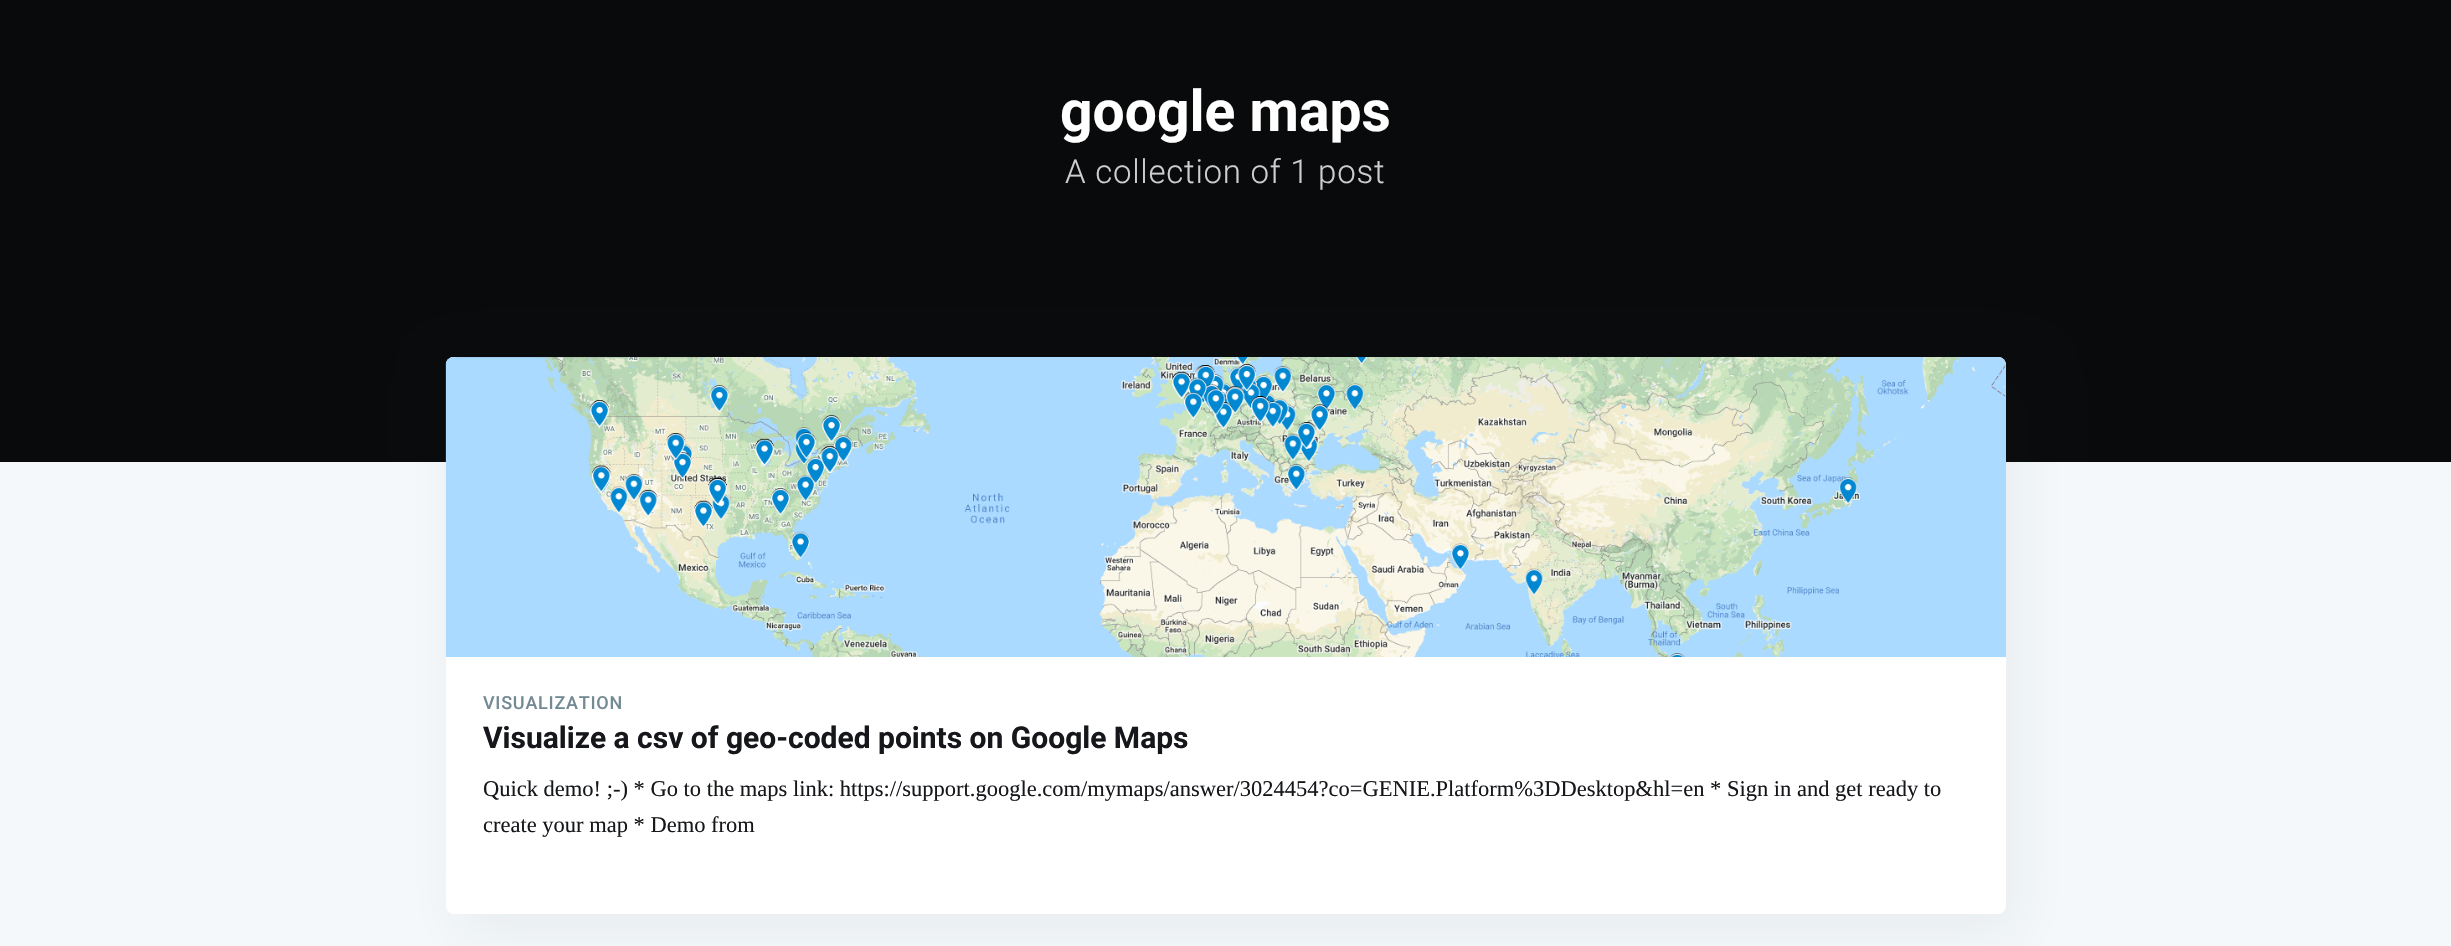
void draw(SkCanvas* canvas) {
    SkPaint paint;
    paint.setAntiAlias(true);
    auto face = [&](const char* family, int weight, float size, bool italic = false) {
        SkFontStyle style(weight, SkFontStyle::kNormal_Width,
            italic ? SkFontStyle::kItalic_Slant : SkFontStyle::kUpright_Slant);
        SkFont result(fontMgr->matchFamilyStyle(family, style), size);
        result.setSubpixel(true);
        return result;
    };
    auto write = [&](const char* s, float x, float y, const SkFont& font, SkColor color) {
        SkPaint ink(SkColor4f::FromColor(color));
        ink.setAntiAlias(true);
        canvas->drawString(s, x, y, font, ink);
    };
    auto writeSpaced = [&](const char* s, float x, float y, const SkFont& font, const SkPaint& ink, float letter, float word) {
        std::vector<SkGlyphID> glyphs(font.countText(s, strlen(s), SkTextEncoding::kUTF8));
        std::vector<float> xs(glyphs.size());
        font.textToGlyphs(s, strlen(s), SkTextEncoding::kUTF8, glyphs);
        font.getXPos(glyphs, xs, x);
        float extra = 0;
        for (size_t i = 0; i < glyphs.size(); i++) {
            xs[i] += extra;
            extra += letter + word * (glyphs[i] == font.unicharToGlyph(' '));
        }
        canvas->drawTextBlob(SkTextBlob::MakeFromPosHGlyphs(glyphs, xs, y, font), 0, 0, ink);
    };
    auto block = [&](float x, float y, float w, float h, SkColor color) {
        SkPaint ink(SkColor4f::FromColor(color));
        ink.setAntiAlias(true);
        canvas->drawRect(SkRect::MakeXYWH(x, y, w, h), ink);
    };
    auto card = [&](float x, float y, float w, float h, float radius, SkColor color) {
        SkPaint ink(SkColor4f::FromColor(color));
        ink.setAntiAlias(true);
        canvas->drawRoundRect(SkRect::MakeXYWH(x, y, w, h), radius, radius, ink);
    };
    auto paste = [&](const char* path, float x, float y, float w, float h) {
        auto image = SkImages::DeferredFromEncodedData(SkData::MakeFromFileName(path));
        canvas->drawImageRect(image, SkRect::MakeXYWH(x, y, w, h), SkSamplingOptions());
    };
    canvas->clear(SkColorSetRGB(244, 248, 251));
    block(0, 0, 2451, 462, SkColorSetRGB(9, 10, 11));
    auto kFont1 = face("Roboto", 700, 57);
    write("google maps", 1060, 131, kFont1, SK_ColorWHITE);
    auto kFont2 = face("Roboto", 300, 33);
    paint.setColor(SkColorSetRGB(206, 206, 206));
    writeSpaced("A collection of 1 post", 1065, 183, kFont2, paint, 0.75f, 0);
    paint.setColor(SkColorSetARGB(15, 39, 44, 49));
    paint.setMaskFilter(SkMaskFilter::MakeBlur(kNormal_SkBlurStyle, 28.5f));
    canvas->drawRoundRect(SkRect::MakeXYWH(458, 378, 1560, 557), 8, 8, paint);
    paint.setMaskFilter(nullptr);
    card(446, 357, 1560, 557, 8, SK_ColorWHITE);
    paint.setColor(SkColorSetRGB(197, 210, 217));
    canvas->drawPath(SkPathBuilder().moveTo(454, 357).lineTo(1998, 357).cubicTo(2002.5f, 357, 2006, 360.5f, 2006, 365).lineTo(2006, 657).lineTo(446, 657).lineTo(446, 365).cubicTo(446, 360.5f, 449.5f, 357, 454, 357).close().detach(), paint);
    paste("pic1.png", 445, 357, 1561, 300);
    auto kFont3 = face("Roboto", 500, 18);
    paint.setColor(SkColorSetRGB(115, 138, 148));
    writeSpaced("VISUALIZATION", 483, 709, kFont3, paint, 0.75f, 0);
    auto kFont4 = face("Roboto", 700, 30);
    write("Visualize a csv of geo-coded points on Google Maps", 483, 748, kFont4, SkColorSetRGB(21, 23, 26));
    auto kFont5 = face("Liberation Serif", 400, 22.5f);
    write("Quick demo! ;-) * Go to the maps link: https://support.google.com/mymaps/answer/3024454?co=GENIE.Platform%3DDesktop&hl=en * Sign in and get ready to", 483, 796, kFont5, SkColorSetRGB(21, 23, 26));
    write("create your map * Demo from", 483, 832, kFont5, SkColorSetRGB(21, 23, 26));
}
